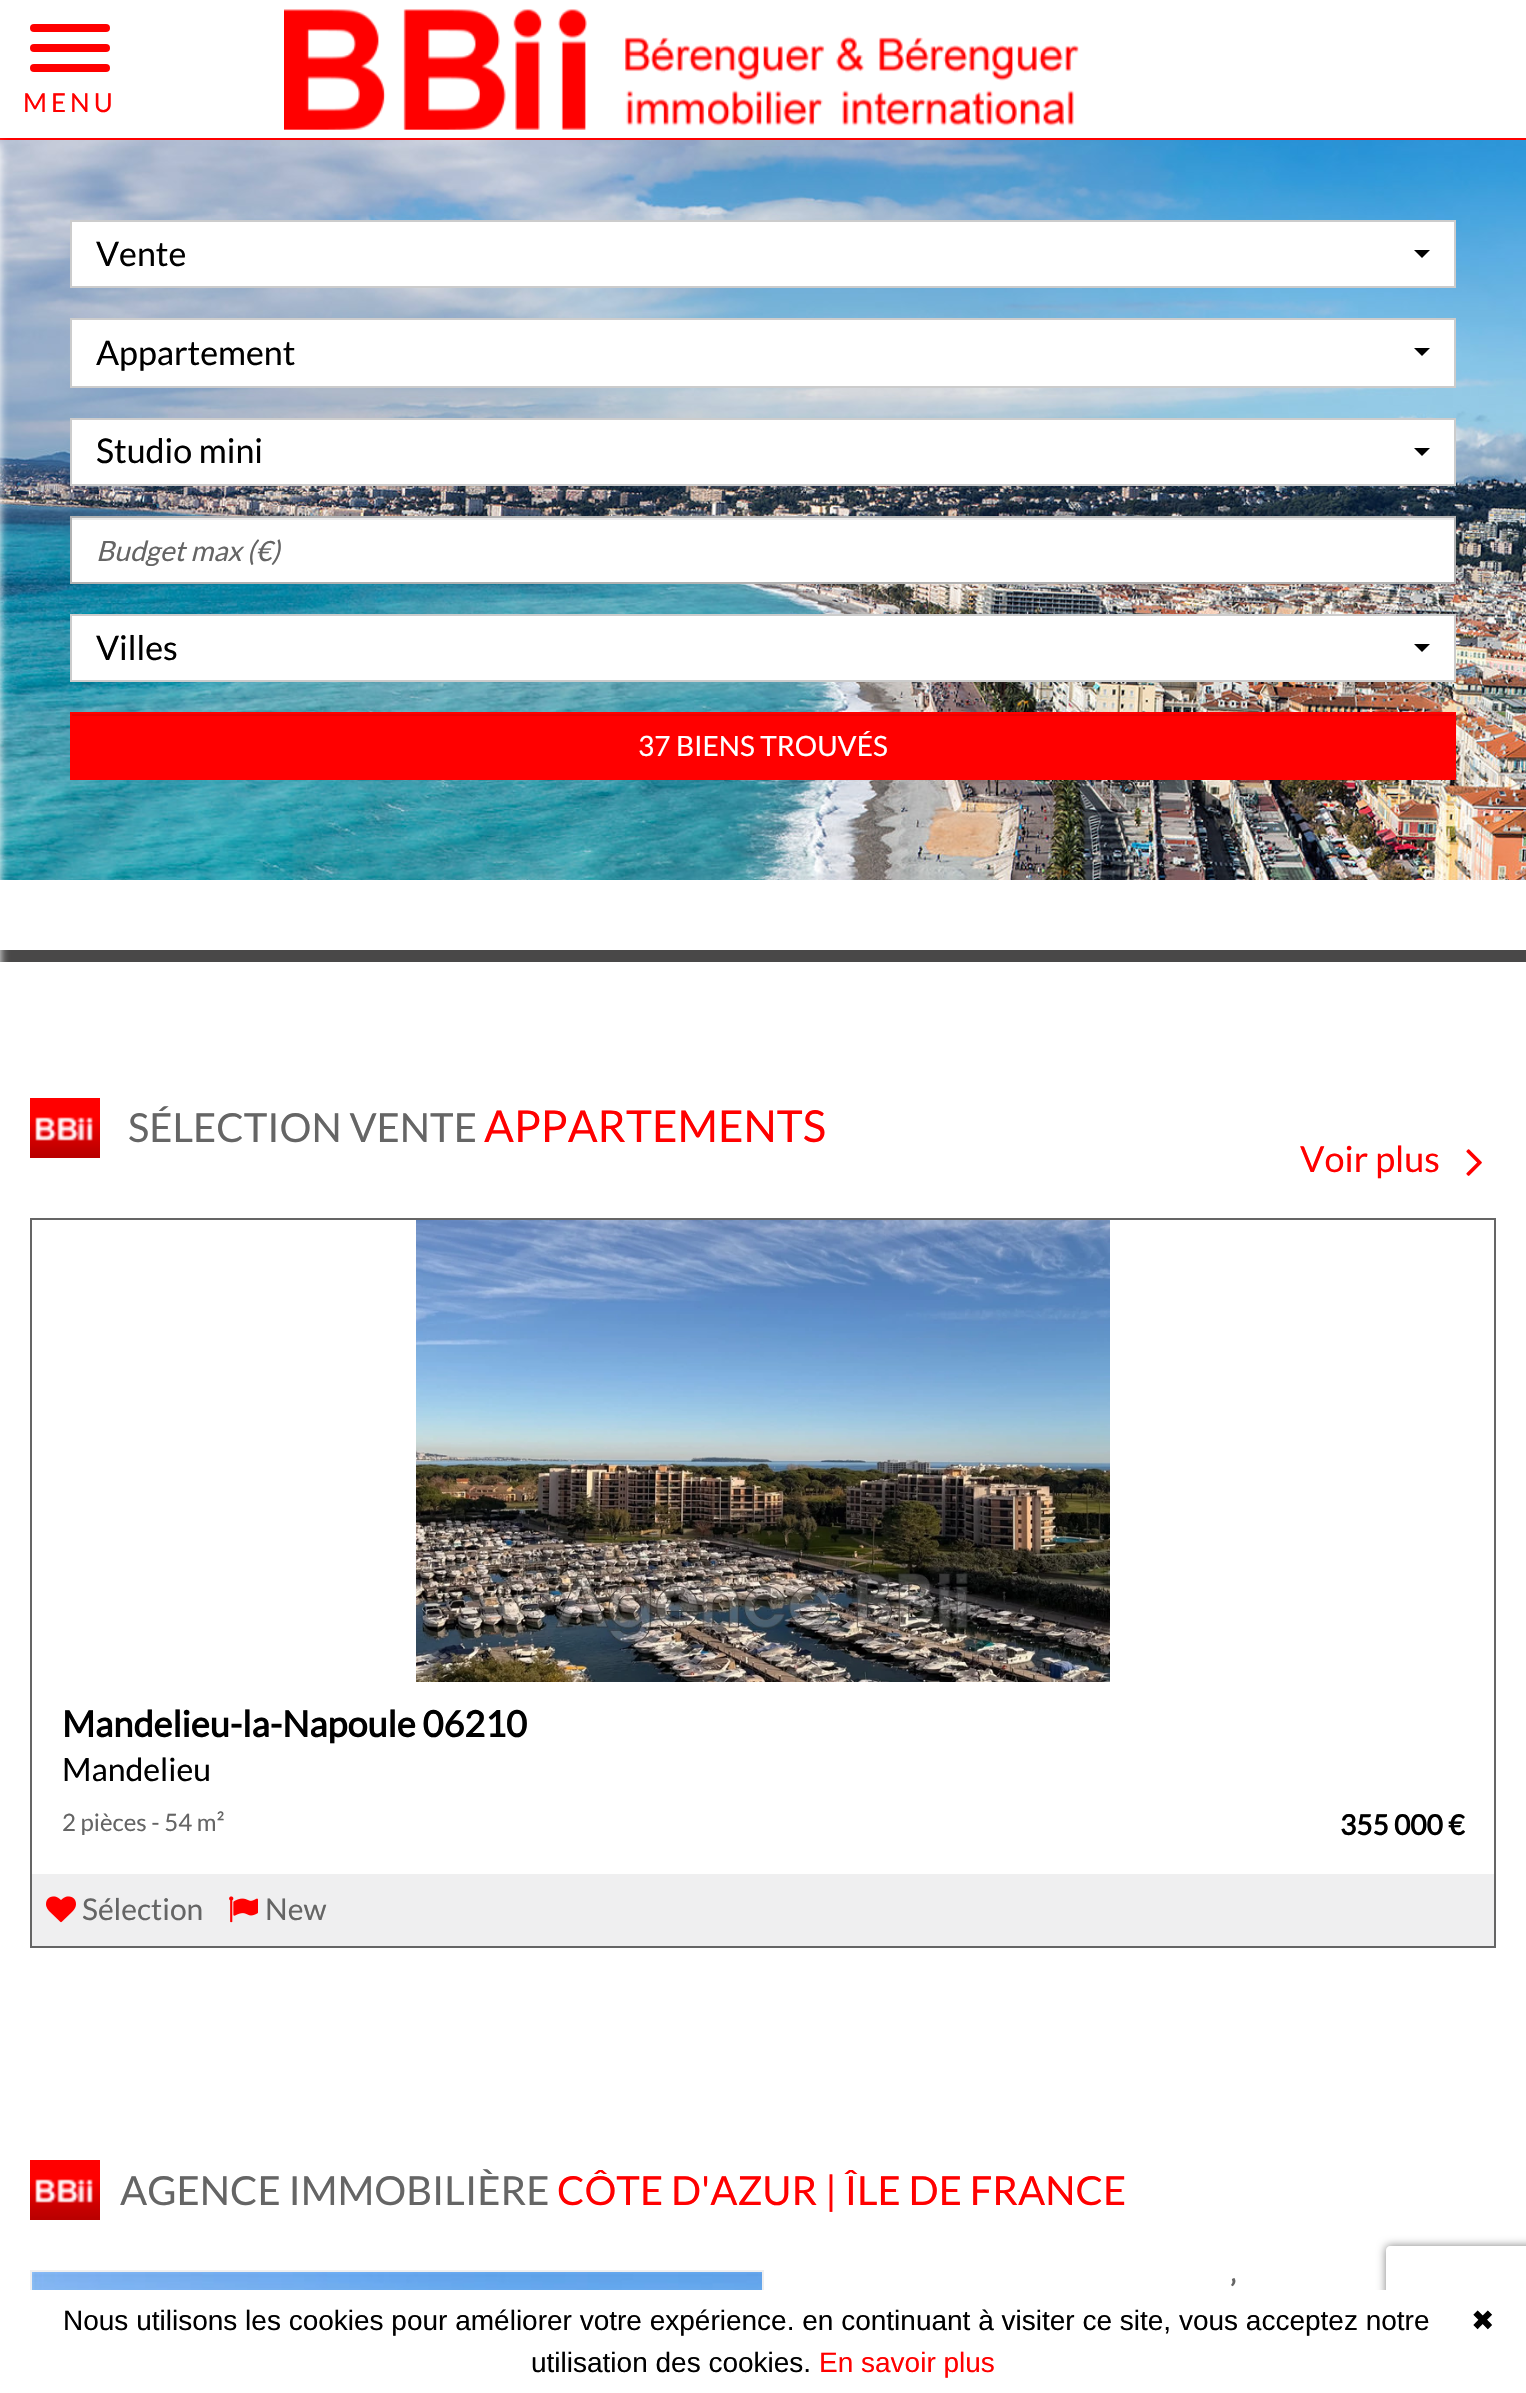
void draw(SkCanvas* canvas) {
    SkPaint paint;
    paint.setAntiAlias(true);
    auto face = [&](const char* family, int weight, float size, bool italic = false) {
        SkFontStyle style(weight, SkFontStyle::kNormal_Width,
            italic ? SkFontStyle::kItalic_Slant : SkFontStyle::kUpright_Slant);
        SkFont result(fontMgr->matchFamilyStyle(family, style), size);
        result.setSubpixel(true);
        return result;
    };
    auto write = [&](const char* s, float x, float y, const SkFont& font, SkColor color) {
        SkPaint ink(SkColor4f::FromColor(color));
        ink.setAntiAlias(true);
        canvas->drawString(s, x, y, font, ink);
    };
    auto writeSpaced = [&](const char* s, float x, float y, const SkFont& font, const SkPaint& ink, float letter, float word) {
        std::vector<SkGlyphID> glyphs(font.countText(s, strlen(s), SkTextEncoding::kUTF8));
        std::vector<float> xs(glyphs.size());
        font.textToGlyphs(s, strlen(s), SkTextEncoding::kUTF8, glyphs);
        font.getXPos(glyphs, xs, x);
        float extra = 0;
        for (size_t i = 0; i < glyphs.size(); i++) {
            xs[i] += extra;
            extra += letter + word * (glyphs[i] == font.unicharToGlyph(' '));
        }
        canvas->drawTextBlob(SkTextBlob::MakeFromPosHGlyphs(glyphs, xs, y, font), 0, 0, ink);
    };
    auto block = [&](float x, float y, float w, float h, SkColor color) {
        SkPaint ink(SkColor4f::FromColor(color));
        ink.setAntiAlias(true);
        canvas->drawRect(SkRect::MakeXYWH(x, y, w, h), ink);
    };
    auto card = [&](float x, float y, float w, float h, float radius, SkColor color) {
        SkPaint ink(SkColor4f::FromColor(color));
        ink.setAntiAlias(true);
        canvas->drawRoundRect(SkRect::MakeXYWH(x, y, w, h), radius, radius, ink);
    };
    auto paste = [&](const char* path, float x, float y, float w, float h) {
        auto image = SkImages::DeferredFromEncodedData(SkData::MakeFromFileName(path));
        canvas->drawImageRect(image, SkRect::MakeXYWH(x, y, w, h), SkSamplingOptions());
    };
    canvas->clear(SK_ColorWHITE);
    block(0, 138, 1526, 2, SkColorSetRGB(255, 0, 0));
    card(30, 24, 80, 8, 4, SkColorSetRGB(255, 0, 0));
    card(30, 44, 80, 8, 4, SkColorSetRGB(255, 0, 0));
    card(30, 64, 80, 8, 4, SkColorSetRGB(255, 0, 0));
    auto kFont1 = face("Lato", 400, 26);
    paint.setColor(SkColorSetRGB(255, 0, 0));
    writeSpaced("MENU", 23, 112, kFont1, paint, 4, 0);
    paste("pic1.png", 284, 9, 795, 121);
    paste("pic2.png", 0, 140, 1526, 740);
    block(0, 950, 1526, 12, SkColorSetRGB(73, 72, 72));
    paint.setColor(SK_ColorWHITE);
    paint.setMaskFilter(SkMaskFilter::MakeBlur(kNormal_SkBlurStyle, 5));
    canvas->drawRect(SkRect::MakeXYWH(-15, 144, 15, 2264), paint);
    paint.setMaskFilter(nullptr);
    canvas->drawRect(SkRect::MakeXYWH(71, 221, 1384, 66), paint);
    paint.setStyle(SkPaint::kStroke_Style);
    paint.setStrokeWidth(2);
    paint.setColor(SkColorSetRGB(204, 204, 204));
    canvas->drawRect(SkRect::MakeXYWH(71, 221, 1384, 66), paint);
    auto kFont2 = face("Lato", 400, 34);
    write("Vente", 96, 266, kFont2, SK_ColorBLACK);
    paint.setStyle(SkPaint::kFill_Style);
    paint.setColor(SK_ColorBLACK);
    canvas->drawPath(SkPathBuilder().moveTo(1414, 250).lineTo(1430, 250).lineTo(1422, 258).close().detach(), paint);
    paint.setColor(SK_ColorWHITE);
    canvas->drawRect(SkRect::MakeXYWH(71, 319, 1384, 68), paint);
    paint.setStyle(SkPaint::kStroke_Style);
    paint.setColor(SkColorSetRGB(204, 204, 204));
    canvas->drawRect(SkRect::MakeXYWH(71, 319, 1384, 68), paint);
    write("Appartement", 96, 365, kFont2, SK_ColorBLACK);
    paint.setStyle(SkPaint::kFill_Style);
    paint.setColor(SK_ColorBLACK);
    canvas->drawPath(SkPathBuilder().moveTo(1414, 348).lineTo(1430, 348).lineTo(1422, 356).close().detach(), paint);
    paint.setColor(SK_ColorWHITE);
    canvas->drawRect(SkRect::MakeXYWH(71, 419, 1384, 66), paint);
    paint.setStyle(SkPaint::kStroke_Style);
    paint.setColor(SkColorSetRGB(204, 204, 204));
    canvas->drawRect(SkRect::MakeXYWH(71, 419, 1384, 66), paint);
    write("Studio mini", 96, 463, kFont2, SK_ColorBLACK);
    paint.setStyle(SkPaint::kFill_Style);
    paint.setColor(SK_ColorBLACK);
    canvas->drawPath(SkPathBuilder().moveTo(1414, 448).lineTo(1430, 448).lineTo(1422, 456).close().detach(), paint);
    block(72, 520, 1382, 62, SK_ColorWHITE);
    block(72, 518, 1382, 2, SkColorSetRGB(236, 236, 236));
    paint.setStyle(SkPaint::kStroke_Style);
    paint.setColor(SkColorSetRGB(178, 178, 178));
    canvas->drawRect(SkRect::MakeXYWH(71, 517, 1384, 66), paint);
    auto kFont3 = face("Lato", 400, 28, true);
    write("Budget max (€)", 96, 561, kFont3, SkColorSetRGB(101, 101, 101));
    paint.setStyle(SkPaint::kFill_Style);
    paint.setColor(SK_ColorWHITE);
    canvas->drawRect(SkRect::MakeXYWH(71, 615, 1384, 66), paint);
    paint.setStyle(SkPaint::kStroke_Style);
    paint.setColor(SkColorSetRGB(204, 204, 204));
    canvas->drawRect(SkRect::MakeXYWH(71, 615, 1384, 66), paint);
    write("Villes", 96, 660, kFont2, SK_ColorBLACK);
    paint.setStyle(SkPaint::kFill_Style);
    paint.setColor(SK_ColorBLACK);
    canvas->drawPath(SkPathBuilder().moveTo(1414, 644).lineTo(1430, 644).lineTo(1422, 652).close().detach(), paint);
    block(70, 712, 1386, 68, SkColorSetRGB(255, 0, 0));
    block(72, 714, 1382, 2, SkColorSetRGB(236, 0, 0));
    auto kFont4 = face("Lato", 400, 28);
    write("37 BIENS TROUVÉS", 638, 756, kFont4, SK_ColorWHITE);
    paste("pic3.png", 30, 1098, 70, 60);
    auto kFont5 = face("Lato", 400, 40);
    write("SÉLECTION VENTE", 128, 1142, kFont5, SkColorSetRGB(101, 101, 101));
    auto kFont6 = face("Lato", 400, 44);
    write("APPARTEMENTS", 484, 1142, kFont6, SkColorSetRGB(255, 0, 0));
    auto kFont7 = face("Lato", 400, 36);
    write("Voir plus", 1300, 1172, kFont7, SkColorSetRGB(255, 0, 0));
    paste("pic4.png", 1466, 1149, 16, 27);
    paint.setStyle(SkPaint::kStroke_Style);
    paint.setColor(SkColorSetRGB(101, 101, 101));
    canvas->drawRect(SkRect::MakeXYWH(31, 1219, 1464, 728), paint);
    paste("pic5.png", 416, 1220, 694, 462);
    auto kFont8 = face("Lato", 700, 36);
    write("Mandelieu-la-Napoule 06210", 62, 1737, kFont8, SK_ColorBLACK);
    auto kFont9 = face("Lato", 400, 32);
    write("Mandelieu", 62, 1781, kFont9, SK_ColorBLACK);
    auto kFont10 = face("Lato", 400, 24);
    write("2 pièces - 54 m²", 62, 1831, kFont10, SkColorSetRGB(101, 101, 101));
    auto kFont11 = face("Lato", 700, 28);
    write("355 000 €", 1340, 1835, kFont11, SK_ColorBLACK);
    block(32, 1874, 1462, 72, SkColorSetRGB(239, 239, 240));
    paste("pic6.png", 46, 1896, 30, 27);
    auto kFont12 = face("Lato", 400, 30);
    write("Sélection", 82, 1920, kFont12, SkColorSetRGB(101, 101, 101));
    paste("pic7.png", 229, 1896, 29, 27);
    write("New", 265, 1920, kFont12, SkColorSetRGB(101, 101, 101));
    paste("pic3.png", 30, 2160, 70, 60);
    write("AGENCE IMMOBILIÈRE", 120, 2205, kFont5, SkColorSetRGB(101, 101, 101));
    write("CÔTE D'AZUR | ÎLE DE FRANCE", 557, 2205, kFont5, SkColorSetRGB(255, 0, 0));
    paint.setColor(SkColorSetRGB(239, 239, 240));
    canvas->drawRect(SkRect::MakeXYWH(31, 2271, 732, 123), paint);
    paste("pic8.png", 32, 2272, 730, 18);
    write("’", 1230, 2300, kFont11, SkColorSetRGB(101, 101, 101));
    canvas->save();
    canvas->clipPath(SkPathBuilder(SkPathFillType::kEvenOdd).moveTo(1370, 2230).lineTo(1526, 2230).lineTo(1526, 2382).lineTo(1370, 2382).close().moveTo(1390, 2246).lineTo(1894, 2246).cubicTo(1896, 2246, 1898, 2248, 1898, 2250).lineTo(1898, 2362).cubicTo(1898, 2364, 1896, 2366, 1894, 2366).lineTo(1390, 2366).cubicTo(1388, 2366, 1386, 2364, 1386, 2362).lineTo(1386, 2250).cubicTo(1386, 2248, 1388, 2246, 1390, 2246).close().detach(), true);
    paint.setStyle(SkPaint::kFill_Style);
    paint.setColor(SkColorSetRGB(128, 128, 128));
    paint.setMaskFilter(SkMaskFilter::MakeBlur(kNormal_SkBlurStyle, 5));
    canvas->drawRoundRect(SkRect::MakeXYWH(1386, 2246, 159, 120), 4, 4, paint);
    paint.setMaskFilter(nullptr);
    canvas->restore();
    block(30, 2290, 1496, 103, SK_ColorWHITE);
    auto kFont13 = face("Liberation Sans", 400, 28);
    write("Nous utilisons les cookies pour améliorer votre expérience. en continuant à visiter ce site, vous acceptez notre", 63, 2330, kFont13, SK_ColorBLACK);
    auto kFont14 = face("DejaVu Sans", 400, 28);
    write("✖", 1471, 2330, kFont14, SK_ColorBLACK);
    write("utilisation des cookies.", 531, 2372, kFont13, SK_ColorBLACK);
    write("En savoir plus", 819, 2372, kFont13, SkColorSetRGB(255, 0, 0));
}
